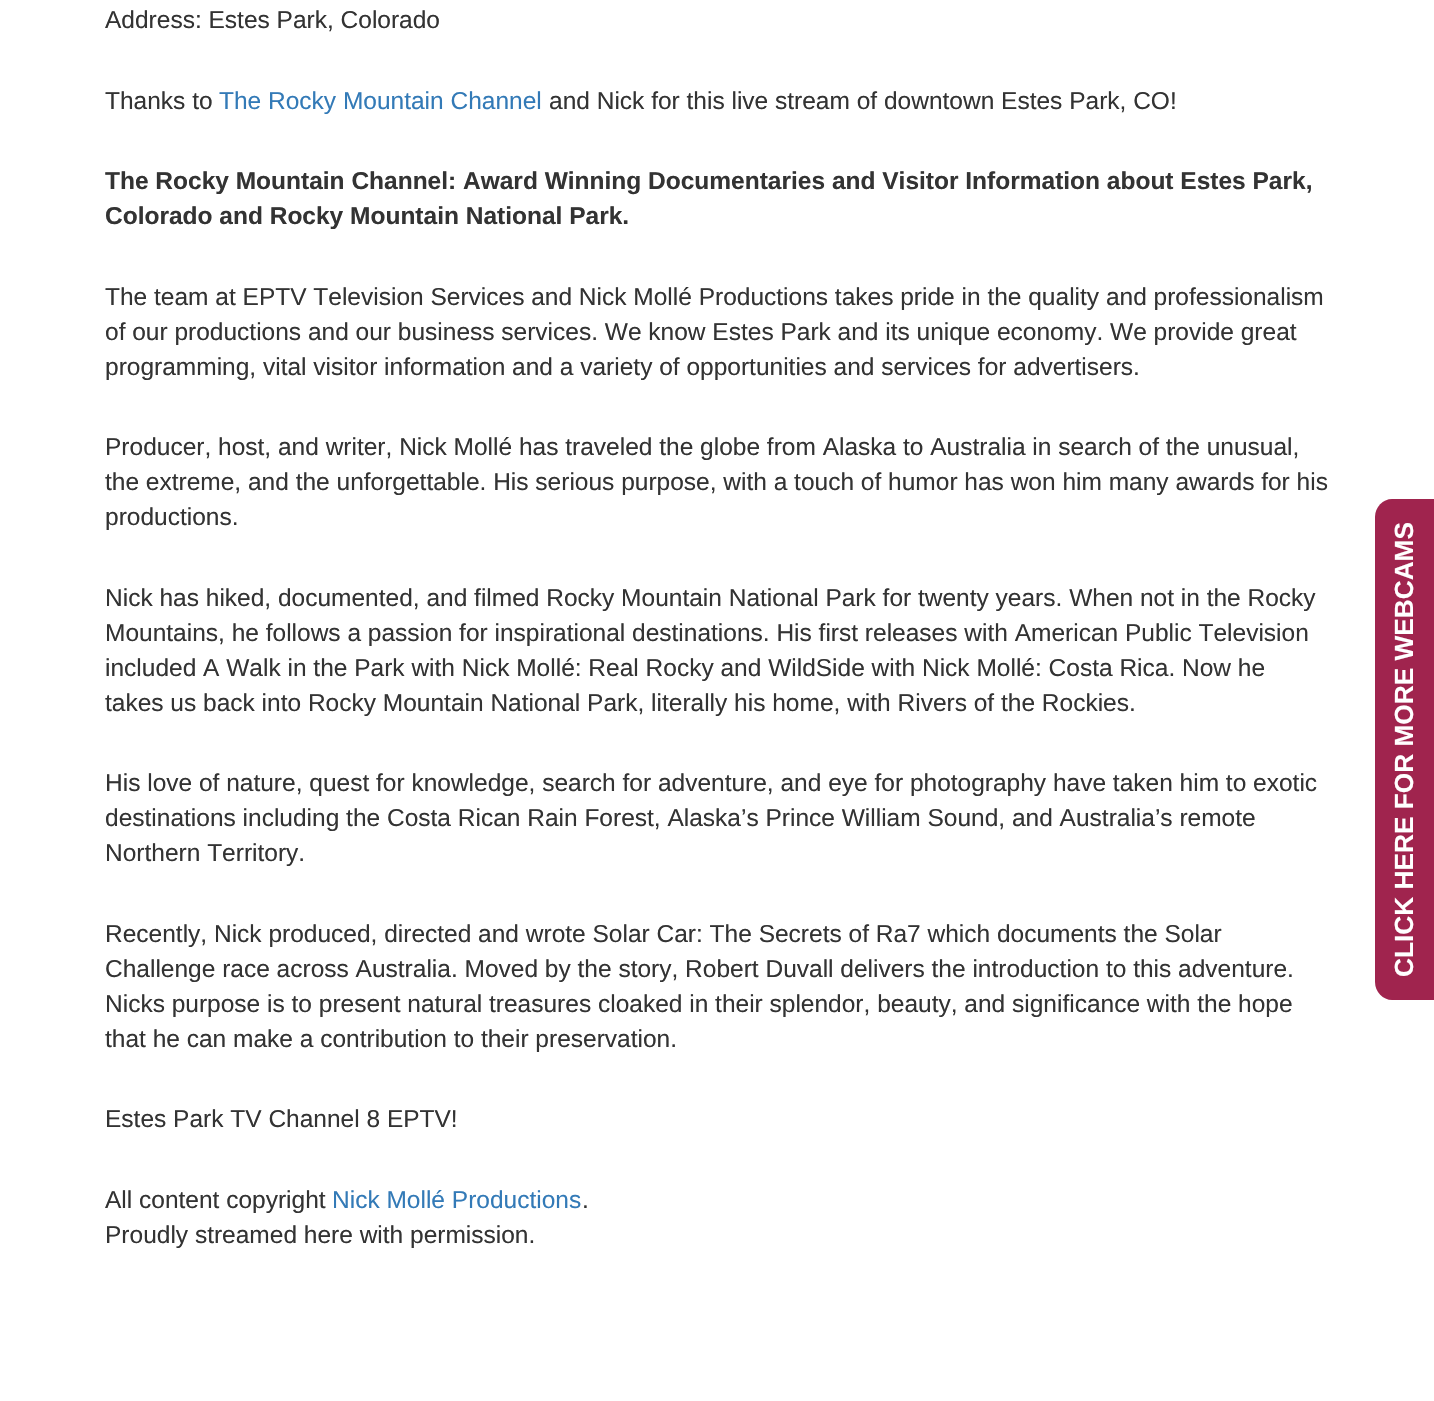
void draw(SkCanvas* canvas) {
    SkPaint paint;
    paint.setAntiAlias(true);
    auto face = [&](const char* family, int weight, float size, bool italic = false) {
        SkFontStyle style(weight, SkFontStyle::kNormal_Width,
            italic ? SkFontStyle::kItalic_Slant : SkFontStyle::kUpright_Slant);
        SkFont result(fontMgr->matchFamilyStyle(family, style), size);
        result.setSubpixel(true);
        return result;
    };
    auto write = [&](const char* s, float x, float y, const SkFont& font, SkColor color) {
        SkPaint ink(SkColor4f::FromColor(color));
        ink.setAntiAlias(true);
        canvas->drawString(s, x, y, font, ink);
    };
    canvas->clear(SK_ColorWHITE);
    auto kFont1 = face("Liberation Sans", 400, 24.5f);
    write("Address: Estes Park, Colorado", 105, 28, kFont1, SkColorSetRGB(51, 51, 51));
    write("Thanks to", 105, 109, kFont1, SkColorSetRGB(51, 51, 51));
    write("The Rocky Mountain Channel", 219, 109, kFont1, SkColorSetRGB(51, 122, 183));
    write("and Nick for this live stream of downtown Estes Park, CO!", 549, 109, kFont1, SkColorSetRGB(51, 51, 51));
    auto kFont2 = face("Liberation Sans", 700, 24.5f);
    write("The Rocky Mountain Channel: Award Winning Documentaries and Visitor Information about Estes Park,", 105, 189, kFont2, SkColorSetRGB(51, 51, 51));
    write("Colorado and Rocky Mountain National Park.", 105, 224, kFont2, SkColorSetRGB(51, 51, 51));
    write("The team at EPTV Television Services and Nick Mollé Productions takes pride in the quality and professionalism", 105, 305, kFont1, SkColorSetRGB(51, 51, 51));
    write("of our productions and our business services. We know Estes Park and its unique economy. We provide great", 105, 340, kFont1, SkColorSetRGB(51, 51, 51));
    write("programming, vital visitor information and a variety of opportunities and services for advertisers.", 105, 375, kFont1, SkColorSetRGB(51, 51, 51));
    write("Producer, host, and writer, Nick Mollé has traveled the globe from Alaska to Australia in search of the unusual,", 105, 455, kFont1, SkColorSetRGB(51, 51, 51));
    write("the extreme, and the unforgettable. His serious purpose, with a touch of humor has won him many awards for his", 105, 490, kFont1, SkColorSetRGB(51, 51, 51));
    write("productions.", 105, 525, kFont1, SkColorSetRGB(51, 51, 51));
    write("Nick has hiked, documented, and filmed Rocky Mountain National Park for twenty years. When not in the Rocky", 105, 606, kFont1, SkColorSetRGB(51, 51, 51));
    write("Mountains, he follows a passion for inspirational destinations. His first releases with American Public Television", 105, 641, kFont1, SkColorSetRGB(51, 51, 51));
    write("included A Walk in the Park with Nick Mollé: Real Rocky and WildSide with Nick Mollé: Costa Rica. Now he", 105, 676, kFont1, SkColorSetRGB(51, 51, 51));
    write("takes us back into Rocky Mountain National Park, literally his home, with Rivers of the Rockies.", 105, 711, kFont1, SkColorSetRGB(51, 51, 51));
    write("His love of nature, quest for knowledge, search for adventure, and eye for photography have taken him to exotic", 105, 791, kFont1, SkColorSetRGB(51, 51, 51));
    write("destinations including the Costa Rican Rain Forest, Alaska’s Prince William Sound, and Australia’s remote", 105, 826, kFont1, SkColorSetRGB(51, 51, 51));
    write("Northern Territory.", 105, 861, kFont1, SkColorSetRGB(51, 51, 51));
    write("Recently, Nick produced, directed and wrote Solar Car: The Secrets of Ra7 which documents the Solar", 105, 942, kFont1, SkColorSetRGB(51, 51, 51));
    write("Challenge race across Australia. Moved by the story, Robert Duvall delivers the introduction to this adventure.", 105, 977, kFont1, SkColorSetRGB(51, 51, 51));
    write("Nicks purpose is to present natural treasures cloaked in their splendor, beauty, and significance with the hope", 105, 1012, kFont1, SkColorSetRGB(51, 51, 51));
    write("that he can make a contribution to their preservation.", 105, 1047, kFont1, SkColorSetRGB(51, 51, 51));
    write("Estes Park TV Channel 8 EPTV!", 105, 1127, kFont1, SkColorSetRGB(51, 51, 51));
    write("All content copyright", 105, 1208, kFont1, SkColorSetRGB(51, 51, 51));
    write("Nick Mollé Productions", 332, 1208, kFont1, SkColorSetRGB(51, 122, 183));
    write(".", 582, 1208, kFont1, SkColorSetRGB(51, 51, 51));
    write("Proudly streamed here with permission.", 105, 1243, kFont1, SkColorSetRGB(51, 51, 51));
    paint.setColor(SkColorSetRGB(160, 36, 78));
    canvas->drawPath(SkPathBuilder().moveTo(1375, 982).lineTo(1375, 517).cubicTo(1375, 507, 1383, 499, 1392, 499).lineTo(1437, 499).lineTo(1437, 1000).lineTo(1392, 1000).cubicTo(1383, 1000, 1375, 992, 1375, 982).close().detach(), paint);
    auto kFont3 = face("Liberation Sans", 700, 26.25f);
    canvas->save();
    canvas->rotate(-90, 1413, 977);
    write("CLICK HERE FOR MORE WEBCAMS", 1413, 977, kFont3, SK_ColorWHITE);
    canvas->restore();
}
